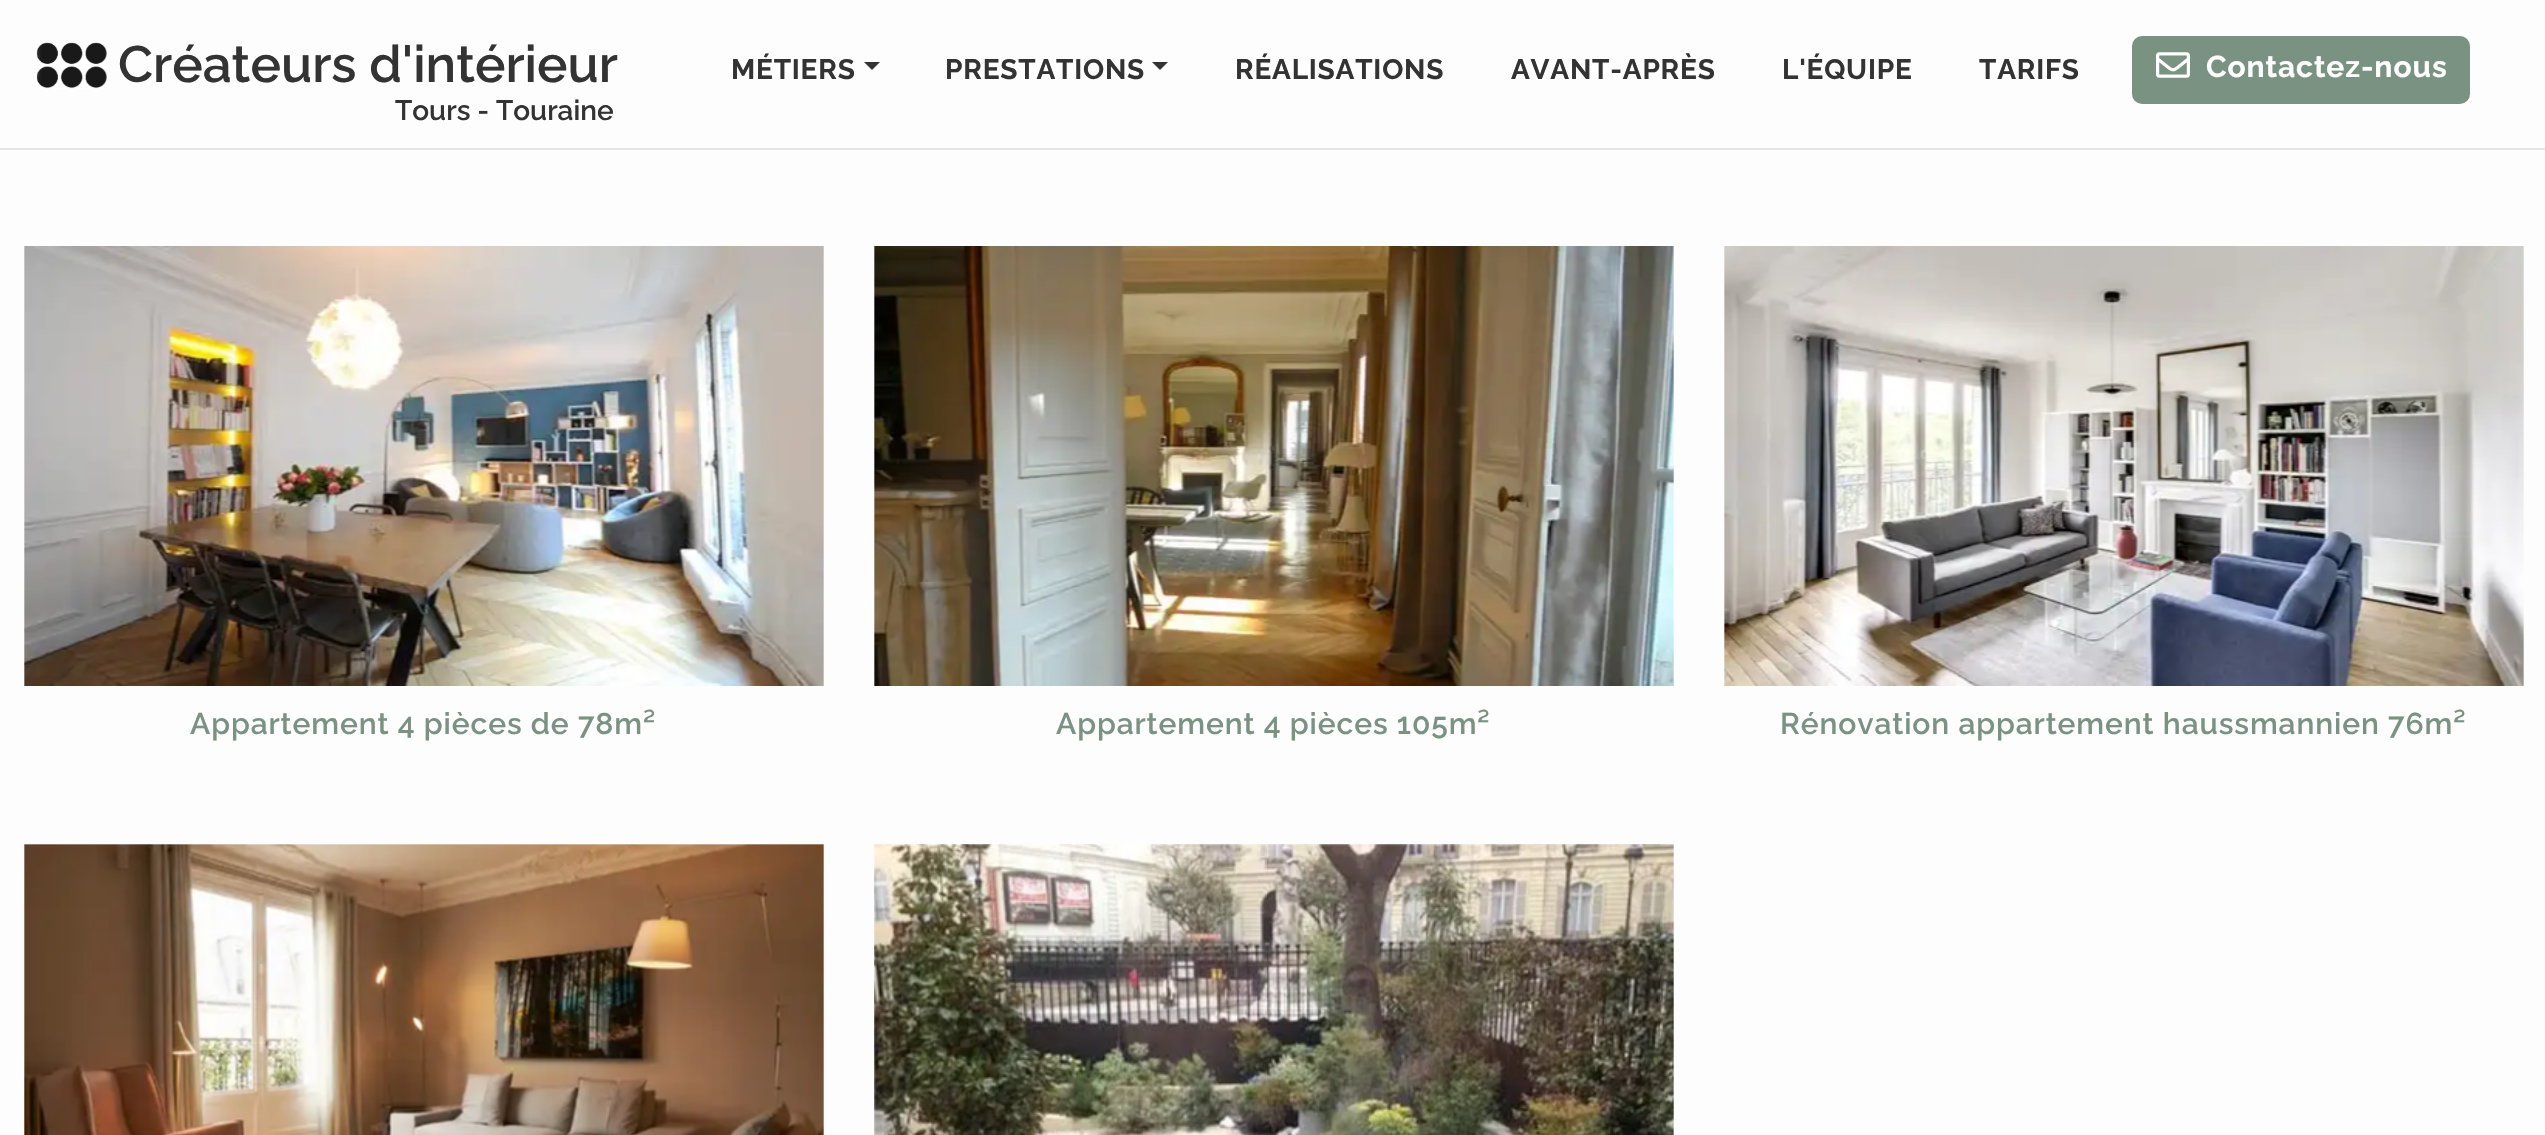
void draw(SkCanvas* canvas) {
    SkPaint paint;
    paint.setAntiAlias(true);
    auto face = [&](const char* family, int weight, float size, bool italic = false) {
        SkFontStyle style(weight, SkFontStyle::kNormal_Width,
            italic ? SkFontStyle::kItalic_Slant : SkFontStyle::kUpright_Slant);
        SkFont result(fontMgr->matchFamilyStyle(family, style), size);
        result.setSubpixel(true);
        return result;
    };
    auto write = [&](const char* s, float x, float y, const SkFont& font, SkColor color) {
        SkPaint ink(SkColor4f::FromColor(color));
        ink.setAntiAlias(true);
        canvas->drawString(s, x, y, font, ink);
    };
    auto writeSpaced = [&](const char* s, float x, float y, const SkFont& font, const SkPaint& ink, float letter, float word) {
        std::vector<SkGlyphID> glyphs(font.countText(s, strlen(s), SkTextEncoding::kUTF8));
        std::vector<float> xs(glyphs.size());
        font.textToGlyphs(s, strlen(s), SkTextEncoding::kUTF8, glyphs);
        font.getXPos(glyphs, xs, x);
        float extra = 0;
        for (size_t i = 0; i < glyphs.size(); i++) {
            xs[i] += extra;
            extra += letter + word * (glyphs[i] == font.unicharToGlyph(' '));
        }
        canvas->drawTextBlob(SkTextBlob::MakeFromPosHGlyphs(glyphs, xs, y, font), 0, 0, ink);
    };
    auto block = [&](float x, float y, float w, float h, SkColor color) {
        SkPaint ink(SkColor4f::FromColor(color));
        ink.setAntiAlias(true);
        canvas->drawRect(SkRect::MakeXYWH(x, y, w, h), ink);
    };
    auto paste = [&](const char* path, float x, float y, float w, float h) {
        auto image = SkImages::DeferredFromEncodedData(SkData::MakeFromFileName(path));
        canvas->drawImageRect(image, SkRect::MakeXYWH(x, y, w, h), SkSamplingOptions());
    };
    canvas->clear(SkColorSetRGB(253, 253, 253));
    block(0, 148, 2545, 2, SkColorSetRGB(230, 230, 230));
    paste("pic1.png", 36, 42, 71, 47);
    auto kFont1 = face("Raleway", 600, 51.25f);
    write("Créateurs d'intérieur", 118, 82, kFont1, SkColorSetRGB(51, 51, 51));
    auto kFont2 = face("Raleway", 600, 28);
    write("Tours - Touraine", 395, 120, kFont2, SkColorSetRGB(51, 51, 51));
    auto kFont3 = face("Raleway", 700, 28);
    paint.setColor(SkColorSetRGB(51, 51, 51));
    writeSpaced("MÉTIERS", 731, 79, kFont3, paint, 0.8f, 0);
    canvas->drawPath(SkPathBuilder().moveTo(864, 62).lineTo(880, 62).lineTo(872, 70).close().detach(), paint);
    writeSpaced("PRESTATIONS", 945, 79, kFont3, paint, 0.8f, 0);
    canvas->drawPath(SkPathBuilder().moveTo(1152, 62).lineTo(1168, 62).lineTo(1160, 70).close().detach(), paint);
    writeSpaced("RÉALISATIONS", 1235, 79, kFont3, paint, 0.8f, 0);
    writeSpaced("AVANT-APRÈS", 1511, 79, kFont3, paint, 0.8f, 0);
    writeSpaced("L'ÉQUIPE", 1782, 79, kFont3, paint, 0.8f, 0);
    writeSpaced("TARIFS", 1979, 79, kFont3, paint, 0.8f, 0);
    paint.setColor(SkColorSetRGB(122, 146, 130));
    canvas->drawRoundRect(SkRect::MakeXYWH(2134, 38, 334, 64), 8, 8, paint);
    paint.setStyle(SkPaint::kStroke_Style);
    paint.setStrokeWidth(4);
    canvas->drawRoundRect(SkRect::MakeXYWH(2134, 38, 334, 64), 8, 8, paint);
    paste("pic2.png", 2156, 52, 34, 26);
    auto kFont4 = face("Raleway", 700, 30);
    paint.setStyle(SkPaint::kFill_Style);
    paint.setColor(SK_ColorWHITE);
    writeSpaced("Contactez-nous", 2206, 77, kFont4, paint, 0.9f, 0);
    paste("pic3.png", 24, 246, 800, 440);
    auto kFont5 = face("Raleway", 600, 30);
    paint.setColor(SkColorSetRGB(122, 146, 130));
    writeSpaced("Appartement 4 pièces de 78m²", 190, 734, kFont5, paint, 0.9f, 0);
    paste("pic4.png", 874, 246, 800, 440);
    writeSpaced("Appartement 4 pièces 105m²", 1056, 734, kFont5, paint, 0.9f, 0);
    paste("pic5.png", 1724, 246, 800, 440);
    writeSpaced("Rénovation appartement haussmannien 76m²", 1780, 734, kFont5, paint, 0.9f, 0);
    paste("pic6.png", 24, 844, 800, 291);
    paste("pic7.png", 874, 844, 800, 291);
}
